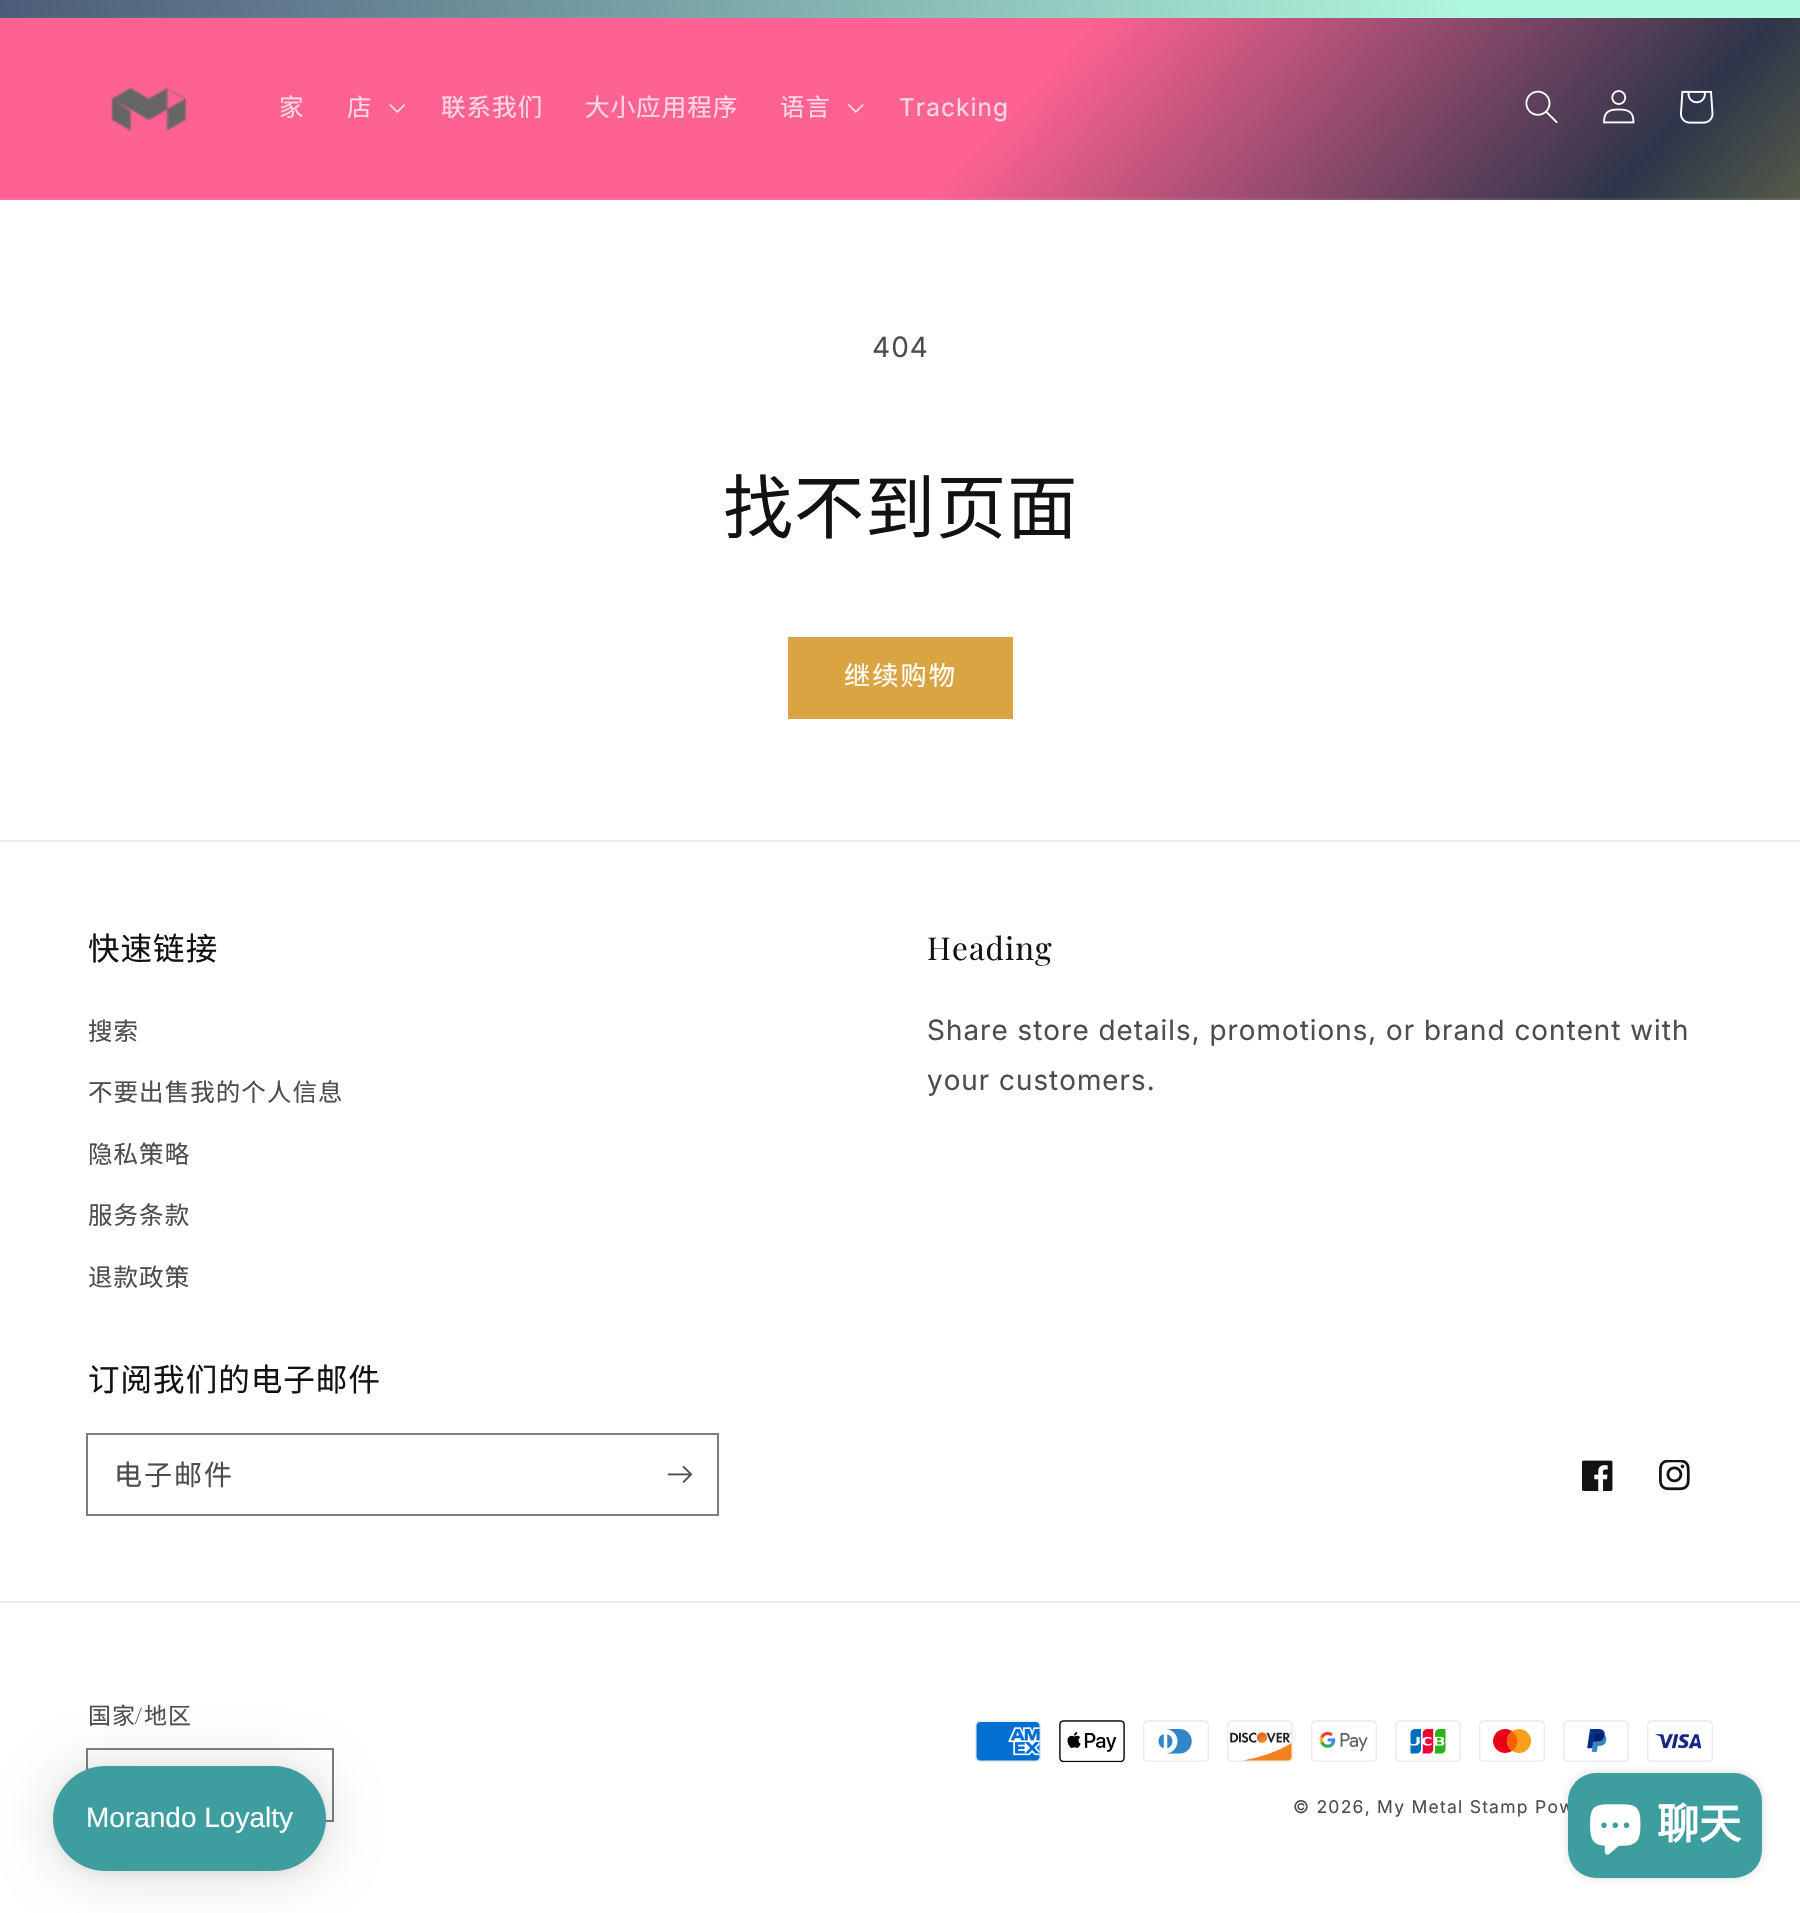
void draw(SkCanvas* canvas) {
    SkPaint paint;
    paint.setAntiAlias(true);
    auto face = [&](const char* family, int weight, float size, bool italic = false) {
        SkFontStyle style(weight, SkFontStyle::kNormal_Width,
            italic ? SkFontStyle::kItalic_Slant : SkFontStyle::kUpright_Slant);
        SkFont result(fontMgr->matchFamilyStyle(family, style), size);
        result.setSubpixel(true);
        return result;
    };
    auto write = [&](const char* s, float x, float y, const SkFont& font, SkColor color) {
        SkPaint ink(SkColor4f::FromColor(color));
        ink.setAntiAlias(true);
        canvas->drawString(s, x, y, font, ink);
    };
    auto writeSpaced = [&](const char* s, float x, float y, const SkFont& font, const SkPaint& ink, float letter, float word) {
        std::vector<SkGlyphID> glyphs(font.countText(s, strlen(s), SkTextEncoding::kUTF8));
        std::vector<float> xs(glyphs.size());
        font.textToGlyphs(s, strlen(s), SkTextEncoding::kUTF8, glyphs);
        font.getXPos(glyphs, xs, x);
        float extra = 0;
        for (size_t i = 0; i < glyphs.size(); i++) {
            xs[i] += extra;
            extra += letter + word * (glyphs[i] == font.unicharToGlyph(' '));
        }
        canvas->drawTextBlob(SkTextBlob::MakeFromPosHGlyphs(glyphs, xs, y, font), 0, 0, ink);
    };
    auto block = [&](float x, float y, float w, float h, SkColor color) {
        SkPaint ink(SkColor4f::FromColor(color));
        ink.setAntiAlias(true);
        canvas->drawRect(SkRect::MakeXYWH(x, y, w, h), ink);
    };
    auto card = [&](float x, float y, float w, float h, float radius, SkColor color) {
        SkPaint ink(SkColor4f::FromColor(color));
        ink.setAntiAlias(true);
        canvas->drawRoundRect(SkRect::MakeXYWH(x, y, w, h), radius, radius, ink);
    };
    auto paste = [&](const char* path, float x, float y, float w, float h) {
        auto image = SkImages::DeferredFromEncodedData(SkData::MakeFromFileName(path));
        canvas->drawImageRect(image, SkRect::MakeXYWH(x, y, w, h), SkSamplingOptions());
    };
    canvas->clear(SK_ColorWHITE);
    {
        const SkColor colors[] = {SkColorSetRGB(74, 87, 117), SkColorSetRGB(175, 248, 221)};
        const float stops[] = {0.2f, 0.86f};
        const SkPoint ends[] = {{-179, 1246}, {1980, 668}};
        paint.setShader(SkGradientShader::MakeLinear(ends, colors, stops, 2, SkTileMode::kClamp));
        paint.setAlpha(255);
    }
    canvas->drawRect(SkRect::MakeXYWH(0, 0, 1800, 16), paint);
    {
        const SkColor colors[] = {SkColorSetRGB(77, 90, 120), SkColorSetRGB(177, 249, 222)};
        const float stops[] = {0.2f, 0.86f};
        const SkPoint ends[] = {{-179, 1246}, {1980, 668}};
        paint.setShader(SkGradientShader::MakeLinear(ends, colors, stops, 2, SkTileMode::kClamp));
        paint.setAlpha(255);
    }
    canvas->drawRect(SkRect::MakeXYWH(0, 16, 1800, 2), paint);
    {
        const SkColor colors[] = {SkColorSetRGB(254, 98, 146), SkColorSetRGB(46, 53, 74), SkColorSetRGB(247, 250, 64), SkColorSetRGB(250, 220, 54)};
        const float stops[] = {0.31f, 0.5f, 0.78f, 0.89f};
        const SkPoint ends[] = {{-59, 63}, {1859, 1852}};
        paint.setShader(SkGradientShader::MakeLinear(ends, colors, stops, 4, SkTileMode::kClamp));
        paint.setAlpha(255);
    }
    canvas->drawRect(SkRect::MakeXYWH(0, 18, 1800, 180), paint);
    {
        const SkColor colors[] = {SkColorSetRGB(254, 111, 155), SkColorSetRGB(63, 69, 88), SkColorSetRGB(248, 250, 79), SkColorSetRGB(250, 223, 70)};
        const float stops[] = {0.31f, 0.5f, 0.78f, 0.89f};
        const SkPoint ends[] = {{-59, 63}, {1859, 1852}};
        paint.setShader(SkGradientShader::MakeLinear(ends, colors, stops, 4, SkTileMode::kClamp));
        paint.setAlpha(255);
    }
    canvas->drawRect(SkRect::MakeXYWH(0, 198, 1800, 2), paint);
    paste("pic1.png", 110, 87, 78, 45);
    auto kFont1 = face("Noto Sans CJK SC", 400, 24.5f);
    paint.setShader(nullptr);
    paint.setColor(SkColorSetRGB(255, 216, 228));
    writeSpaced("家", 279, 116, kFont1, paint, 1.05f, 0);
    writeSpaced("店", 347, 116, kFont1, paint, 1.05f, 0);
    paste("pic2.png", 389, 104, 16, 9);
    writeSpaced("联系我们", 441, 116, kFont1, paint, 1.05f, 0);
    writeSpaced("大小应用程序", 585, 116, kFont1, paint, 1.05f, 0);
    writeSpaced("语言", 780, 116, kFont1, paint, 1.05f, 0);
    paste("pic3.png", 848, 104, 16, 9);
    auto kFont2 = face("Inter", 400, 24.5f);
    writeSpaced("Tracking", 899, 116, kFont2, paint, 1.05f, 0);
    paste("pic4.png", 1525, 90, 33, 34);
    paste("pic5.png", 1603, 90, 32, 34);
    paste("pic6.png", 1680, 90, 34, 34);
    auto kFont3 = face("Inter", 400, 28);
    paint.setColor(SkColorSetRGB(77, 77, 77));
    writeSpaced("404", 872, 357, kFont3, paint, 1.05f, 0);
    auto kFont4 = face("Noto Sans CJK SC", 400, 70);
    paint.setColor(SkColorSetRGB(18, 18, 18));
    writeSpaced("找不到页面", 723, 533, kFont4, paint, 1.05f, 0);
    paint.setStyle(SkPaint::kStroke_Style);
    paint.setStrokeWidth(2);
    paint.setColor(SkColorSetRGB(217, 164, 65));
    canvas->drawRect(SkRect::MakeXYWH(789, 638, 223, 80), paint);
    block(790, 639, 221, 78, SkColorSetRGB(217, 164, 65));
    auto kFont5 = face("Noto Sans CJK SC", 400, 26.25f);
    paint.setStyle(SkPaint::kFill_Style);
    paint.setColor(SK_ColorWHITE);
    writeSpaced("继续购物", 844, 685, kFont5, paint, 2, 0);
    block(0, 840, 1800, 2, SkColorSetRGB(236, 236, 236));
    auto kFont6 = face("Noto Sans CJK SC", 400, 31.5f);
    paint.setColor(SkColorSetRGB(18, 18, 18));
    writeSpaced("快速链接", 88, 960, kFont6, paint, 1.05f, 0);
    paint.setColor(SkColorSetRGB(77, 77, 77));
    writeSpaced("搜索", 88, 1040, kFont1, paint, 1.05f, 0);
    writeSpaced("不要出售我的个人信息", 88, 1101, kFont1, paint, 1.05f, 0);
    writeSpaced("隐私策略", 88, 1163, kFont1, paint, 1.05f, 0);
    writeSpaced("服务条款", 88, 1224, kFont1, paint, 1.05f, 0);
    writeSpaced("退款政策", 88, 1286, kFont1, paint, 1.05f, 0);
    auto kFont7 = face("Playfair Display", 400, 31.5f);
    paint.setColor(SkColorSetRGB(18, 18, 18));
    writeSpaced("Heading", 927, 960, kFont7, paint, 1.05f, 0);
    auto kFont8 = face("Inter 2", 400, 28);
    paint.setColor(SkColorSetRGB(77, 77, 77));
    writeSpaced("Share store details, promotions, or brand content with", 927, 1040, kFont8, paint, 1.05f, 0);
    writeSpaced("your customers.", 927, 1090, kFont8, paint, 1.05f, 0);
    paint.setColor(SkColorSetRGB(18, 18, 18));
    writeSpaced("订阅我们的电子邮件", 88, 1391, kFont6, paint, 1.05f, 0);
    paint.setStyle(SkPaint::kStroke_Style);
    paint.setColor(SkColorSetRGB(125, 125, 125));
    canvas->drawRect(SkRect::MakeXYWH(87, 1434, 631, 81), paint);
    auto kFont9 = face("Noto Sans CJK SC", 400, 28);
    paint.setStyle(SkPaint::kFill_Style);
    paint.setColor(SkColorSetRGB(77, 77, 77));
    writeSpaced("电子邮件", 114, 1485, kFont9, paint, 2, 0);
    paste("pic7.png", 667, 1466, 25, 17);
    paste("pic8.png", 1582, 1460, 31, 31);
    paste("pic9.png", 1659, 1460, 31, 31);
    block(0, 1601, 1800, 2, SkColorSetRGB(236, 236, 236));
    auto kFont10 = face("Noto Sans CJK SC", 400, 23);
    writeSpaced("国家", 88, 1724, kFont10, paint, 1, 0);
    auto kFont11 = face("Playfair Display", 400, 23);
    writeSpaced("/", 134, 1724, kFont11, paint, 1, 0);
    writeSpaced("地区", 144, 1724, kFont10, paint, 1, 0);
    paint.setStyle(SkPaint::kStroke_Style);
    paint.setColor(SkColorSetRGB(125, 125, 125));
    canvas->drawRect(SkRect::MakeXYWH(87, 1749, 246, 72), paint);
    paste("pic10.png", 975, 1720, 66, 42);
    paste("pic11.png", 1059, 1720, 66, 42);
    paste("pic12.png", 1143, 1720, 66, 42);
    paste("pic13.png", 1227, 1720, 66, 42);
    paste("pic14.png", 1311, 1720, 66, 42);
    paste("pic15.png", 1395, 1720, 66, 42);
    paste("pic16.png", 1479, 1720, 66, 42);
    paste("pic17.png", 1563, 1720, 66, 42);
    paste("pic18.png", 1647, 1720, 66, 42);
    auto kFont12 = face("Inter", 400, 17.5f);
    paint.setStyle(SkPaint::kFill_Style);
    paint.setColor(SkColorSetRGB(77, 77, 77));
    writeSpaced("© 2026, My Metal Stamp", 1293, 1813, kFont12, paint, 1.25f, 0);
    writeSpaced("Pow", 1535, 1813, kFont12, paint, 1.25f, 0);
    paint.setColor(SkColorSetARGB(38, 0, 0, 0));
    paint.setMaskFilter(SkMaskFilter::MakeBlur(kNormal_SkBlurStyle, 26));
    canvas->drawRoundRect(SkRect::MakeXYWH(53, 1769, 273, 105), 52.5f, 52.5f, paint);
    paint.setMaskFilter(nullptr);
    paint.setColor(SkColorSetARGB(13, 0, 0, 0));
    paint.setMaskFilter(SkMaskFilter::MakeBlur(kNormal_SkBlurStyle, 5));
    canvas->drawRoundRect(SkRect::MakeXYWH(53, 1768, 273, 105), 52.5f, 52.5f, paint);
    paint.setMaskFilter(nullptr);
    card(53, 1766, 273, 105, 52.5f, SkColorSetRGB(61, 157, 159));
    auto kFont13 = face("Liberation Sans", 400, 28);
    write("Morando Loyalty", 86, 1827, kFont13, SK_ColorWHITE);
    paint.setColor(SkColorSetARGB(38, 0, 0, 0));
    paint.setMaskFilter(SkMaskFilter::MakeBlur(kNormal_SkBlurStyle, 4.5f));
    canvas->drawRoundRect(SkRect::MakeXYWH(1568, 1773, 194, 105), 28, 28, paint);
    paint.setMaskFilter(nullptr);
    card(1568, 1773, 194, 105, 28, SkColorSetRGB(61, 157, 159));
    paste("pic19.png", 1590, 1804, 51, 51);
    auto kFont14 = face("Noto Sans CJK SC", 700, 42);
    write("聊天", 1657, 1839, kFont14, SK_ColorWHITE);
}
